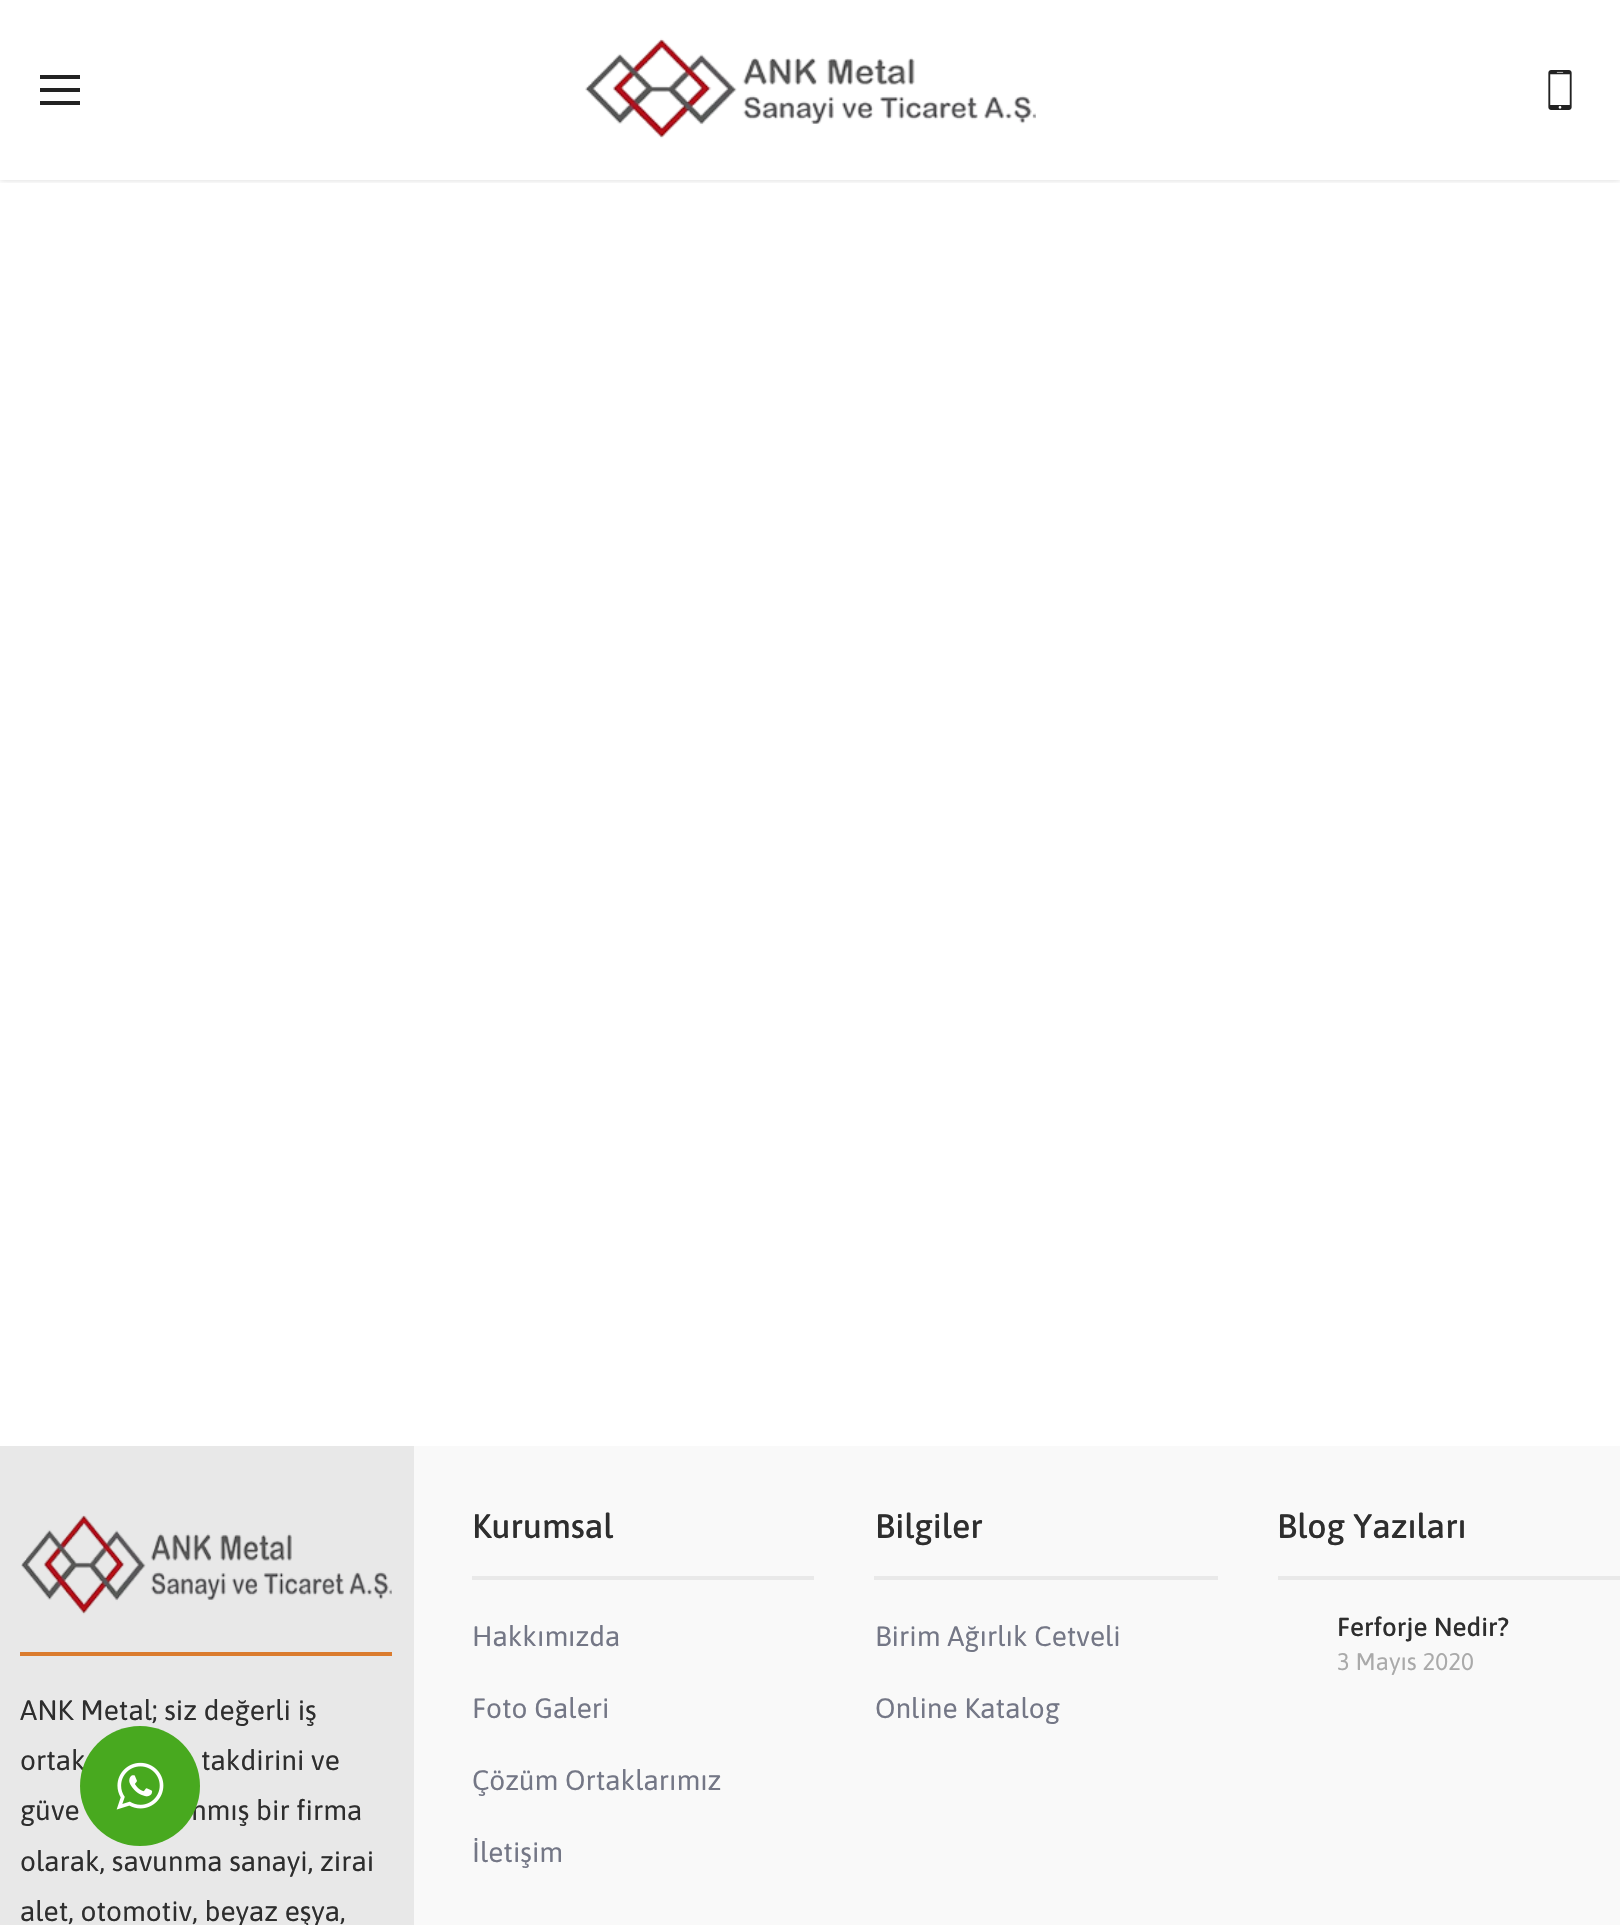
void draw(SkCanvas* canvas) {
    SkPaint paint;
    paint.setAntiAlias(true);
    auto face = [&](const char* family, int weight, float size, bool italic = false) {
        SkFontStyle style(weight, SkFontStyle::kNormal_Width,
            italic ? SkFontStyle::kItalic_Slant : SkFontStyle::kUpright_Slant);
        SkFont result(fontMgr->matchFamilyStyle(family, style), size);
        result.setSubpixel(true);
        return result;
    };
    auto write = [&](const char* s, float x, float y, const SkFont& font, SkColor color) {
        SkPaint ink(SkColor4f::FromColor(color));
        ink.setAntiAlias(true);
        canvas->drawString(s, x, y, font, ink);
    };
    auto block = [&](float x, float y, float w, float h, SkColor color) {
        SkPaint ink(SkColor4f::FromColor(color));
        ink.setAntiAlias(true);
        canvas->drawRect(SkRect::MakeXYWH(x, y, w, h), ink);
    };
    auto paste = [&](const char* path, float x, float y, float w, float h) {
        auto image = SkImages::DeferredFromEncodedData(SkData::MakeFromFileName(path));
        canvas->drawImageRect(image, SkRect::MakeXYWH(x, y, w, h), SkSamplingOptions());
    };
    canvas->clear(SK_ColorWHITE);
    canvas->save();
    canvas->clipRect(SkRect::MakeXYWH(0, 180, 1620, 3));
    paint.setColor(SkColorSetARGB(38, 0, 0, 0));
    paint.setMaskFilter(SkMaskFilter::MakeBlur(kNormal_SkBlurStyle, 3));
    canvas->drawRect(SkRect::MakeXYWH(0, 0, 1620, 180), paint);
    paint.setMaskFilter(nullptr);
    canvas->restore();
    paint.setColor(SkColorSetRGB(34, 34, 34));
    canvas->drawPath(SkPathBuilder().moveTo(40, 75).lineTo(80, 75).lineTo(80, 79).lineTo(40, 79).close().moveTo(40, 88).lineTo(80, 88).lineTo(80, 92).lineTo(40, 92).close().moveTo(40, 101).lineTo(80, 101).lineTo(80, 105).lineTo(40, 105).close().detach(), paint);
    paste("pic1.png", 585, 38, 451, 101);
    paste("pic2.png", 1548, 70, 24, 40);
    block(0, 1446, 414, 479, SkColorSetRGB(232, 232, 232));
    block(414, 1446, 1206, 479, SkColorSetRGB(249, 249, 249));
    block(472, 1576, 342, 4, SkColorSetRGB(233, 233, 233));
    auto kFont1 = face("Asap", 500, 34);
    write("Kurumsal", 472, 1538, kFont1, SkColorSetRGB(46, 46, 46));
    auto kFont2 = face("Asap", 400, 28);
    write("Hakkımızda", 472, 1646, kFont2, SkColorSetRGB(116, 119, 134));
    write("Foto Galeri", 472, 1718, kFont2, SkColorSetRGB(116, 119, 134));
    write("Çözüm Ortaklarımız", 472, 1790, kFont2, SkColorSetRGB(116, 119, 134));
    write("İletişim", 472, 1862, kFont2, SkColorSetRGB(116, 119, 134));
    block(874, 1576, 344, 4, SkColorSetRGB(233, 233, 233));
    write("Bilgiler", 875, 1538, kFont1, SkColorSetRGB(46, 46, 46));
    write("Birim Ağırlık Cetveli", 875, 1646, kFont2, SkColorSetRGB(116, 119, 134));
    write("Online Katalog", 875, 1718, kFont2, SkColorSetRGB(116, 119, 134));
    block(1278, 1576, 342, 4, SkColorSetRGB(233, 233, 233));
    write("Blog Yazıları", 1277, 1538, kFont1, SkColorSetRGB(46, 46, 46));
    auto kFont3 = face("Asap", 500, 26);
    write("Ferforje Nedir?", 1337, 1636, kFont3, SkColorSetRGB(46, 46, 46));
    auto kFont4 = face("Asap", 400, 24);
    write("3 Mayıs 2020", 1337, 1670, kFont4, SkColorSetRGB(170, 170, 170));
    paste("pic3.png", 21, 1515, 371, 100);
    block(20, 1652, 372, 4, SkColorSetRGB(219, 124, 46));
    write("ANK Metal; siz değerli iş", 20, 1720, kFont2, SkColorSetRGB(46, 46, 46));
    write("ortak", 20, 1770, kFont2, SkColorSetRGB(46, 46, 46));
    write("takdirini ve", 201, 1770, kFont2, SkColorSetRGB(46, 46, 46));
    write("güve", 20, 1820, kFont2, SkColorSetRGB(46, 46, 46));
    write("nmış bir firma", 191, 1820, kFont2, SkColorSetRGB(46, 46, 46));
    write("olarak, savunma sanayi, zirai", 20, 1871, kFont2, SkColorSetRGB(46, 46, 46));
    write("alet, otomotiv, beyaz eşya,", 20, 1921, kFont2, SkColorSetRGB(46, 46, 46));
    paint.setColor(SkColorSetRGB(72, 169, 31));
    canvas->drawCircle(140, 1786, 60, paint);
    paste("pic4.png", 116, 1762, 48, 48);
}
